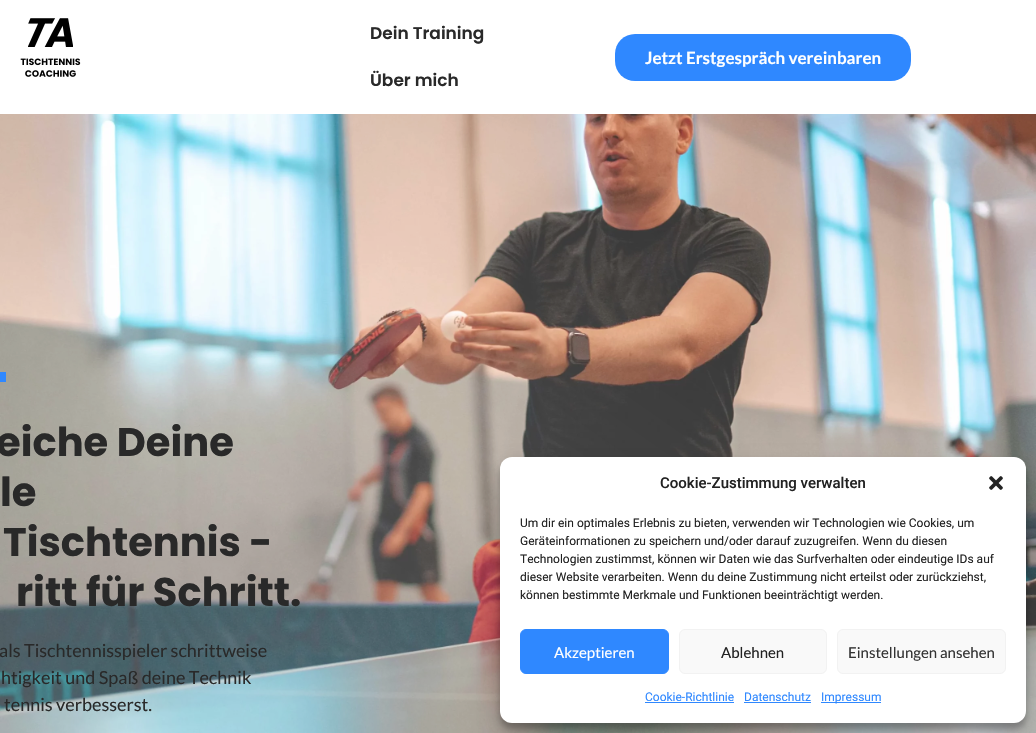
void draw(SkCanvas* canvas) {
    SkPaint paint;
    paint.setAntiAlias(true);
    auto face = [&](const char* family, int weight, float size, bool italic = false) {
        SkFontStyle style(weight, SkFontStyle::kNormal_Width,
            italic ? SkFontStyle::kItalic_Slant : SkFontStyle::kUpright_Slant);
        SkFont result(fontMgr->matchFamilyStyle(family, style), size);
        result.setSubpixel(true);
        return result;
    };
    auto write = [&](const char* s, float x, float y, const SkFont& font, SkColor color) {
        SkPaint ink(SkColor4f::FromColor(color));
        ink.setAntiAlias(true);
        canvas->drawString(s, x, y, font, ink);
    };
    auto block = [&](float x, float y, float w, float h, SkColor color) {
        SkPaint ink(SkColor4f::FromColor(color));
        ink.setAntiAlias(true);
        canvas->drawRect(SkRect::MakeXYWH(x, y, w, h), ink);
    };
    auto card = [&](float x, float y, float w, float h, float radius, SkColor color) {
        SkPaint ink(SkColor4f::FromColor(color));
        ink.setAntiAlias(true);
        canvas->drawRoundRect(SkRect::MakeXYWH(x, y, w, h), radius, radius, ink);
    };
    auto paste = [&](const char* path, float x, float y, float w, float h) {
        auto image = SkImages::DeferredFromEncodedData(SkData::MakeFromFileName(path));
        canvas->drawImageRect(image, SkRect::MakeXYWH(x, y, w, h), SkSamplingOptions());
    };
    canvas->clear(SK_ColorWHITE);
    paste("pic1.png", 20, 18, 61, 59);
    auto kFont1 = face("Poppins", 600, 17);
    write("Dein Training", 370, 39, kFont1, SkColorSetRGB(41, 41, 41));
    write("Über mich", 370, 86, kFont1, SkColorSetRGB(41, 41, 41));
    card(615, 34, 296, 47, 20, SkColorSetRGB(47, 136, 255));
    auto kFont2 = face("Lato", 700, 17);
    write("Jetzt Erstgespräch vereinbaren", 645, 64, kFont2, SK_ColorWHITE);
    paste("pic2.png", 0, 114, 1036, 619);
    block(0, 372, 6, 10, SkColorSetRGB(47, 136, 255));
    auto kFont3 = face("Poppins", 700, 40);
    write("eiche Deine", -4, 456, kFont3, SkColorSetRGB(41, 41, 41));
    write("le", 0, 506, kFont3, SkColorSetRGB(41, 41, 41));
    write("Tischtennis -", 3, 556, kFont3, SkColorSetRGB(41, 41, 41));
    write("ritt für Schritt.", 16, 606, kFont3, SkColorSetRGB(41, 41, 41));
    auto kFont4 = face("Lato", 400, 18);
    write("als Tischtennisspieler schrittweise", -1, 657, kFont4, SkColorSetRGB(41, 41, 41));
    write("htigkeit und Spaß deine Technik", 1, 684, kFont4, SkColorSetRGB(41, 41, 41));
    write("tennis verbesserst.", 4, 711, kFont4, SkColorSetRGB(41, 41, 41));
    paint.setColor(SkColorSetARGB(59, 0, 0, 0));
    paint.setMaskFilter(SkMaskFilter::MakeBlur(kNormal_SkBlurStyle, 3));
    canvas->drawRoundRect(SkRect::MakeXYWH(500, 463, 526, 266), 12, 12, paint);
    paint.setMaskFilter(nullptr);
    paint.setColor(SkColorSetARGB(48, 0, 0, 0));
    paint.setMaskFilter(SkMaskFilter::MakeBlur(kNormal_SkBlurStyle, 10));
    canvas->drawRoundRect(SkRect::MakeXYWH(500, 467, 526, 266), 12, 12, paint);
    paint.setMaskFilter(nullptr);
    card(500, 457, 526, 266, 12, SK_ColorWHITE);
    auto kFont5 = face("Roboto", 500, 15);
    write("Cookie-Zustimmung verwalten", 660, 488, kFont5, SkColorSetRGB(34, 34, 34));
    paste("pic3.png", 989, 476, 14, 14);
    auto kFont6 = face("Roboto", 400, 12);
    write("Um dir ein optimales Erlebnis zu bieten, verwenden wir Technologien wie Cookies, um", 520, 527, kFont6, SkColorSetRGB(34, 34, 34));
    write("Geräteinformationen zu speichern und/oder darauf zuzugreifen. Wenn du diesen", 520, 545, kFont6, SkColorSetRGB(34, 34, 34));
    write("Technologien zustimmst, können wir Daten wie das Surfverhalten oder eindeutige IDs auf", 520, 563, kFont6, SkColorSetRGB(34, 34, 34));
    write("dieser Website verarbeiten. Wenn du deine Zustimmung nicht erteilst oder zurückziehst,", 520, 581, kFont6, SkColorSetRGB(34, 34, 34));
    write("können bestimmte Merkmale und Funktionen beeinträchtigt werden.", 520, 599, kFont6, SkColorSetRGB(34, 34, 34));
    paint.setColor(SkColorSetRGB(47, 136, 255));
    canvas->drawRoundRect(SkRect::MakeXYWH(520.5f, 629.5f, 148, 44), 5.5f, 5.5f, paint);
    paint.setStyle(SkPaint::kStroke_Style);
    paint.setStrokeWidth(1);
    canvas->drawRoundRect(SkRect::MakeXYWH(520.5f, 629.5f, 148, 44), 5.5f, 5.5f, paint);
    auto kFont7 = face("Lato", 400, 15);
    write("Akzeptieren", 554, 658, kFont7, SK_ColorWHITE);
    paint.setStyle(SkPaint::kFill_Style);
    paint.setColor(SkColorSetRGB(249, 249, 249));
    canvas->drawRoundRect(SkRect::MakeXYWH(679.5f, 629.5f, 147, 44), 5.5f, 5.5f, paint);
    paint.setStyle(SkPaint::kStroke_Style);
    paint.setColor(SkColorSetRGB(242, 242, 242));
    canvas->drawRoundRect(SkRect::MakeXYWH(679.5f, 629.5f, 147, 44), 5.5f, 5.5f, paint);
    write("Ablehnen", 721, 658, kFont7, SkColorSetRGB(34, 34, 34));
    paint.setStyle(SkPaint::kFill_Style);
    paint.setColor(SkColorSetRGB(249, 249, 249));
    canvas->drawRoundRect(SkRect::MakeXYWH(837.5f, 629.5f, 168, 44), 5.5f, 5.5f, paint);
    paint.setStyle(SkPaint::kStroke_Style);
    paint.setColor(SkColorSetRGB(242, 242, 242));
    canvas->drawRoundRect(SkRect::MakeXYWH(837.5f, 629.5f, 168, 44), 5.5f, 5.5f, paint);
    write("Einstellungen ansehen", 848, 658, kFont7, SkColorSetRGB(51, 51, 51));
    write("Cookie-Richtlinie", 645, 701, kFont6, SkColorSetRGB(47, 136, 255));
    block(645, 702, 89, 1, SkColorSetRGB(47, 136, 255));
    write("Datenschutz", 744, 701, kFont6, SkColorSetRGB(47, 136, 255));
    block(744, 702, 67, 1, SkColorSetRGB(47, 136, 255));
    block(821, 702, 60, 1, SkColorSetRGB(47, 136, 255));
    write("Impressum", 821, 701, kFont6, SkColorSetRGB(47, 136, 255));
}
